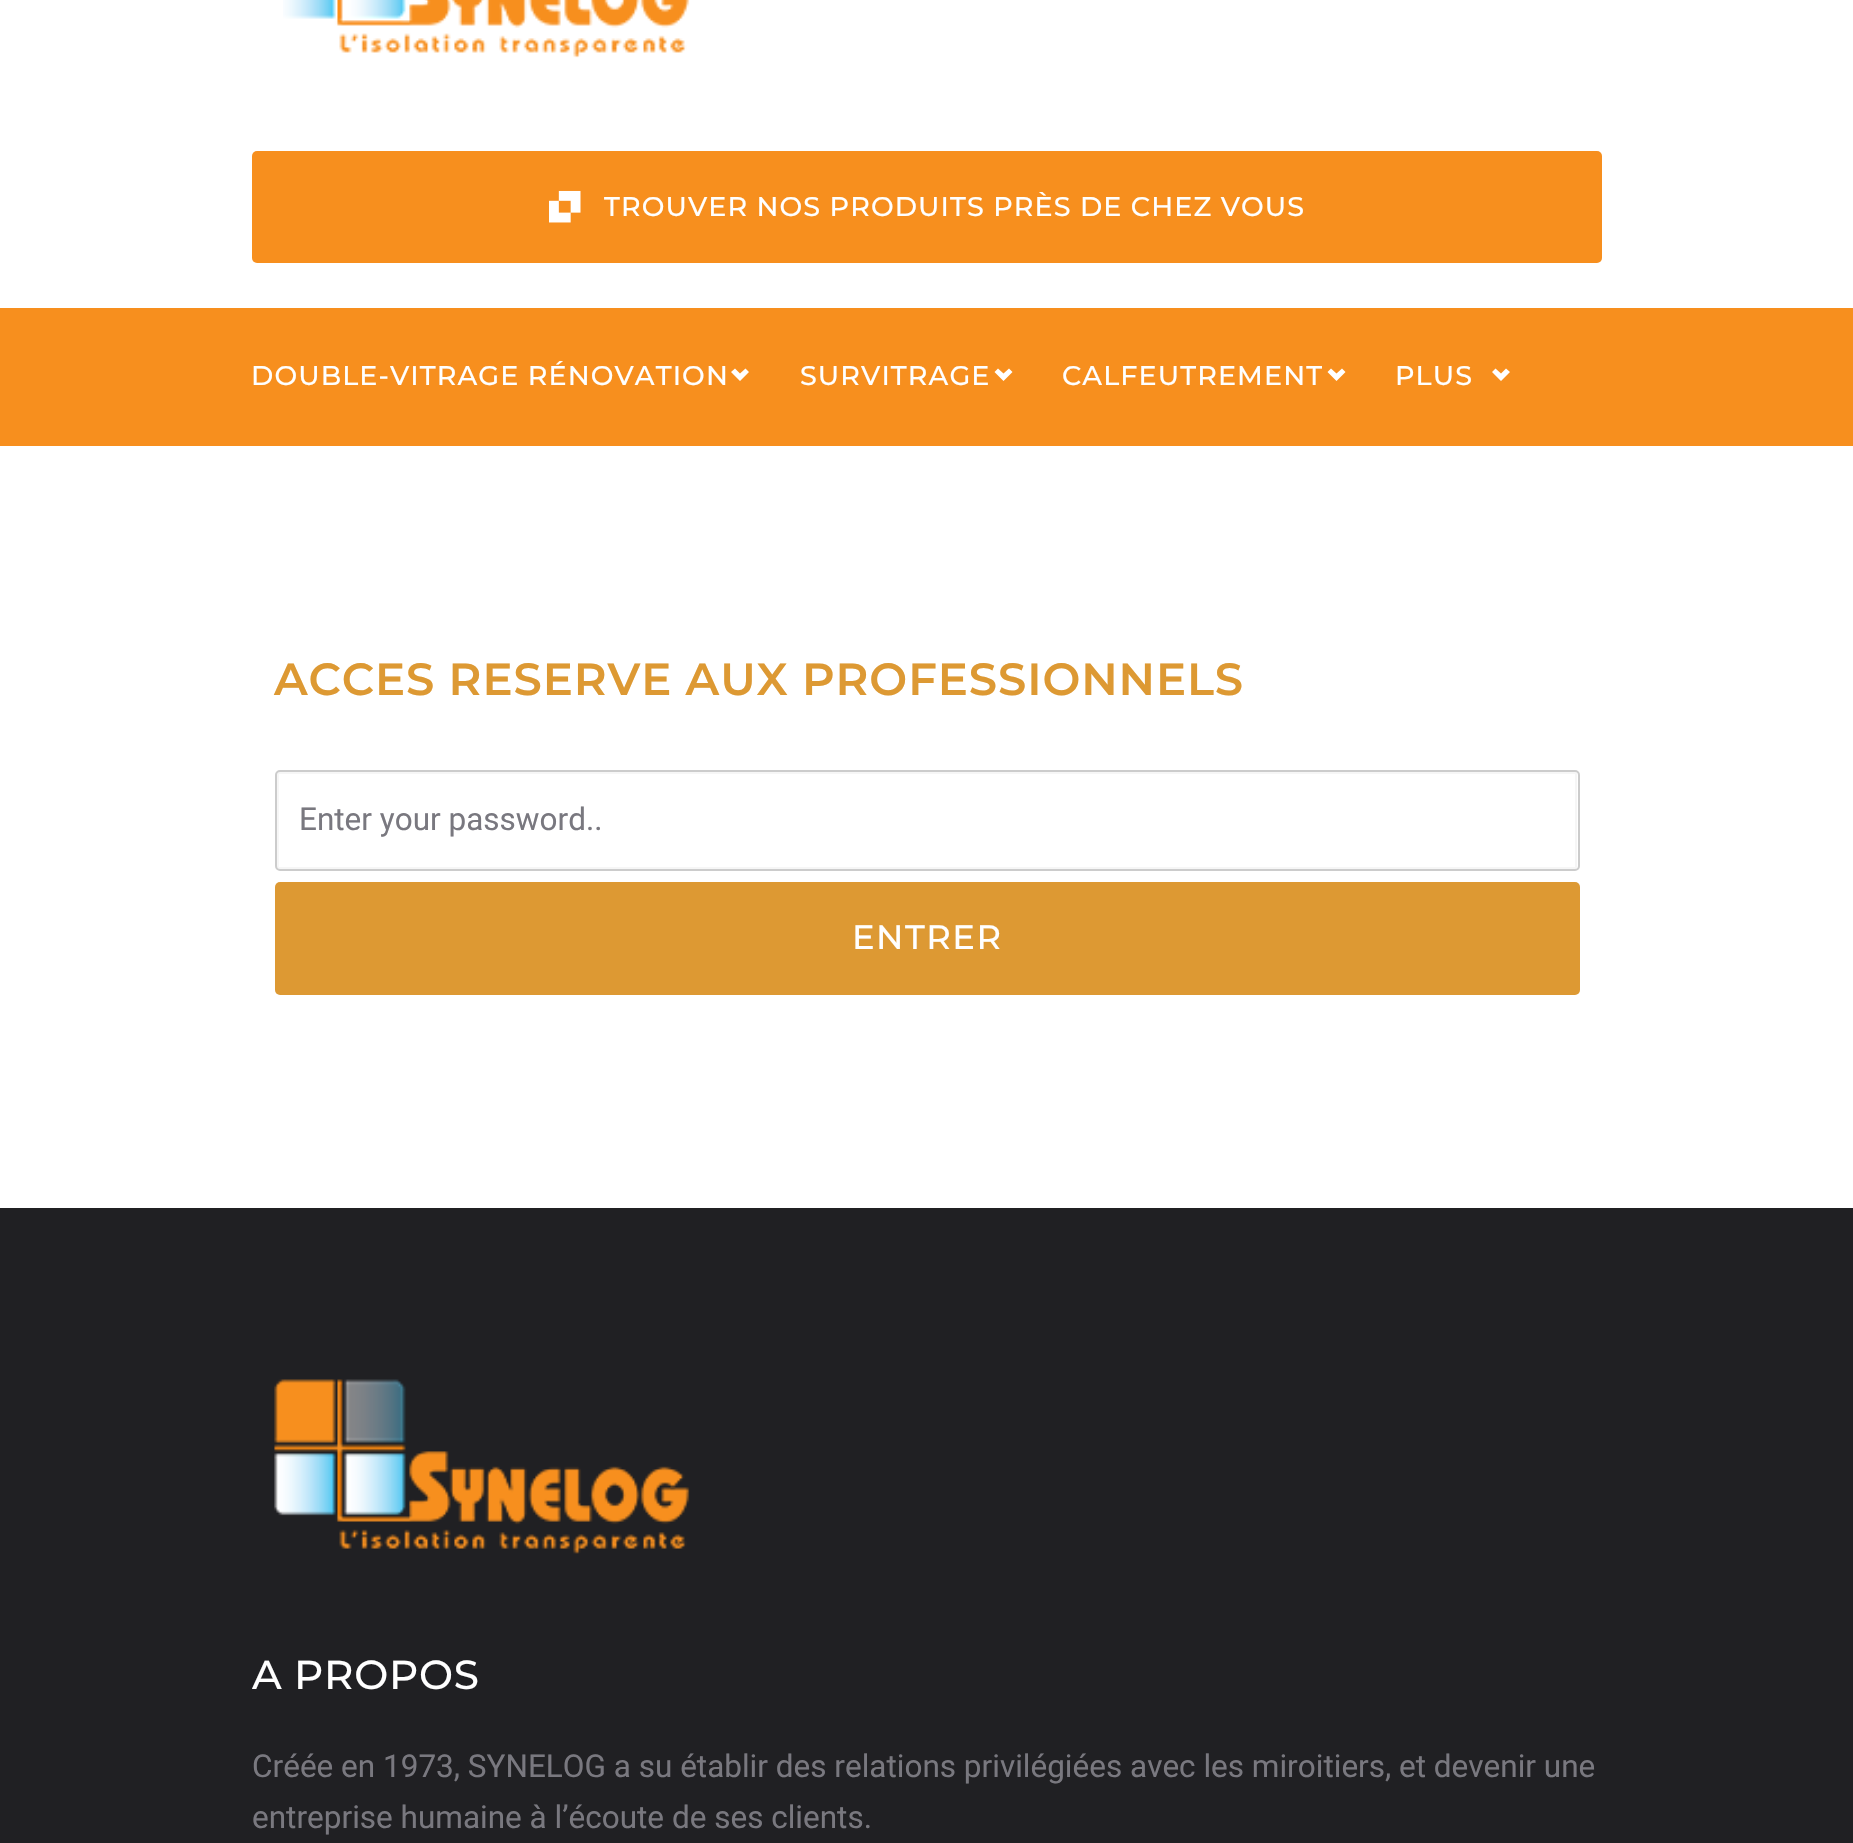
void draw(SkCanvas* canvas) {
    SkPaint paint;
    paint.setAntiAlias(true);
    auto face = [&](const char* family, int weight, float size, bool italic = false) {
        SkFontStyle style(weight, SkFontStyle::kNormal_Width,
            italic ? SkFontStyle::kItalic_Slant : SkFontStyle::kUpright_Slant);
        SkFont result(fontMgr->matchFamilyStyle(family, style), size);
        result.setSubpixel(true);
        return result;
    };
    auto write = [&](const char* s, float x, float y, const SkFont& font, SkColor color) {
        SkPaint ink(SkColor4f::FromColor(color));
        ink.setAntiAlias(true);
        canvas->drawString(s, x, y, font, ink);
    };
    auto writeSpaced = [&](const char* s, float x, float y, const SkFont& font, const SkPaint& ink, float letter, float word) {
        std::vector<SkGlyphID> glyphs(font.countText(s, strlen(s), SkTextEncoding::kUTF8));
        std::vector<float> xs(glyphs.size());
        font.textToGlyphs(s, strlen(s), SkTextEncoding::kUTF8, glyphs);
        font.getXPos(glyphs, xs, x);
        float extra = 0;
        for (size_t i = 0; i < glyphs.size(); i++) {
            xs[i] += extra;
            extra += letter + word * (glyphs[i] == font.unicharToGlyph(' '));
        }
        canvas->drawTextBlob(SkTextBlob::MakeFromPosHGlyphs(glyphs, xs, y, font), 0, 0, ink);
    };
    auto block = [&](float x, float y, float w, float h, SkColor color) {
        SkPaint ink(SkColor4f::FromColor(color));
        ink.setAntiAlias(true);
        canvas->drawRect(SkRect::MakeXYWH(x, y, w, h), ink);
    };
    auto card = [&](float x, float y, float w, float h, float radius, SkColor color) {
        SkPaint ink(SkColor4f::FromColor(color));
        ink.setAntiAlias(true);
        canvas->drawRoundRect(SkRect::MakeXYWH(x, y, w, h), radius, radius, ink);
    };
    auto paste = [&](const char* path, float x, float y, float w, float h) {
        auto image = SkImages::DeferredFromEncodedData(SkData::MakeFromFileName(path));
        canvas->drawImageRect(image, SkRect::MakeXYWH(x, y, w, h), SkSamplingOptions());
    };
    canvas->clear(SK_ColorWHITE);
    paste("pic1.png", 283, 0, 407, 58);
    card(252, 151, 1350, 112, 5, SkColorSetRGB(247, 143, 30));
    paste("pic2.png", 549, 190, 32, 33);
    auto kFont1 = face("Montserrat", 500, 27);
    paint.setColor(SK_ColorWHITE);
    writeSpaced("TROUVER NOS PRODUITS PRÈS DE CHEZ VOUS", 604, 216, kFont1, paint, 1.1f, 0);
    block(0, 308, 1853, 138, SkColorSetRGB(247, 143, 30));
    writeSpaced("DOUBLE-VITRAGE RÉNOVATION", 251, 385, kFont1, paint, 1.1f, 0);
    canvas->drawPath(SkPathBuilder().moveTo(749, 372).lineTo(745.5f, 368.5f).lineTo(740, 373.5f).lineTo(735, 368.5f).lineTo(731, 372).lineTo(740, 381).close().detach(), paint);
    writeSpaced("SURVITRAGE", 800, 385, kFont1, paint, 1.1f, 0);
    canvas->drawPath(SkPathBuilder().moveTo(1012.5f, 372).lineTo(1009, 368.5f).lineTo(1003.5f, 373.5f).lineTo(998, 368.5f).lineTo(994.5f, 372).lineTo(1003.5f, 381).close().detach(), paint);
    writeSpaced("CALFEUTREMENT", 1062, 385, kFont1, paint, 1.1f, 0);
    canvas->drawPath(SkPathBuilder().moveTo(1345.5f, 372).lineTo(1342, 368.5f).lineTo(1336.5f, 373.5f).lineTo(1331, 368.5f).lineTo(1327.5f, 372).lineTo(1336.5f, 381).close().detach(), paint);
    writeSpaced("PLUS", 1395, 385, kFont1, paint, 1.1f, 0);
    canvas->drawPath(SkPathBuilder().moveTo(1510, 372).lineTo(1506, 368.5f).lineTo(1501, 373.5f).lineTo(1495.5f, 368.5f).lineTo(1492, 372).lineTo(1501, 381).close().detach(), paint);
    auto kFont2 = face("Montserrat", 600, 45);
    paint.setColor(SkColorSetRGB(221, 153, 51));
    writeSpaced("ACCES RESERVE AUX PROFESSIONNELS", 274, 695, kFont2, paint, 0.9f, 0);
    paint.setStyle(SkPaint::kStroke_Style);
    paint.setStrokeWidth(2);
    paint.setColor(SkColorSetRGB(246, 246, 246));
    canvas->drawRoundRect(SkRect::MakeXYWH(278, 773, 1298, 95), 1, 1, paint);
    paint.setColor(SkColorSetRGB(204, 204, 204));
    canvas->drawRoundRect(SkRect::MakeXYWH(276, 771, 1303, 99), 4, 4, paint);
    auto kFont3 = face("Roboto", 400, 31.5f);
    write("Enter your password..", 299, 830, kFont3, SkColorSetRGB(121, 120, 127));
    card(275, 882, 1305, 113, 5, SkColorSetRGB(221, 153, 51));
    auto kFont4 = face("Montserrat", 500, 33.75f);
    paint.setStyle(SkPaint::kFill_Style);
    paint.setColor(SK_ColorWHITE);
    writeSpaced("ENTRER", 852, 949, kFont4, paint, 1.5f, 0);
    block(0, 1208, 1853, 635, SkColorSetRGB(32, 32, 35));
    paste("pic3.png", 274, 1379, 416, 175);
    auto kFont5 = face("Montserrat", 500, 40.5f);
    writeSpaced("A PROPOS", 252, 1689, kFont5, paint, 0.75f, 0);
    write("Créée en 1973, SYNELOG a su établir des relations privilégiées avec les miroitiers, et devenir une", 252, 1777, kFont3, SkColorSetRGB(121, 120, 127));
    write("entreprise humaine à l’écoute de ses clients.", 252, 1828, kFont3, SkColorSetRGB(121, 120, 127));
}
